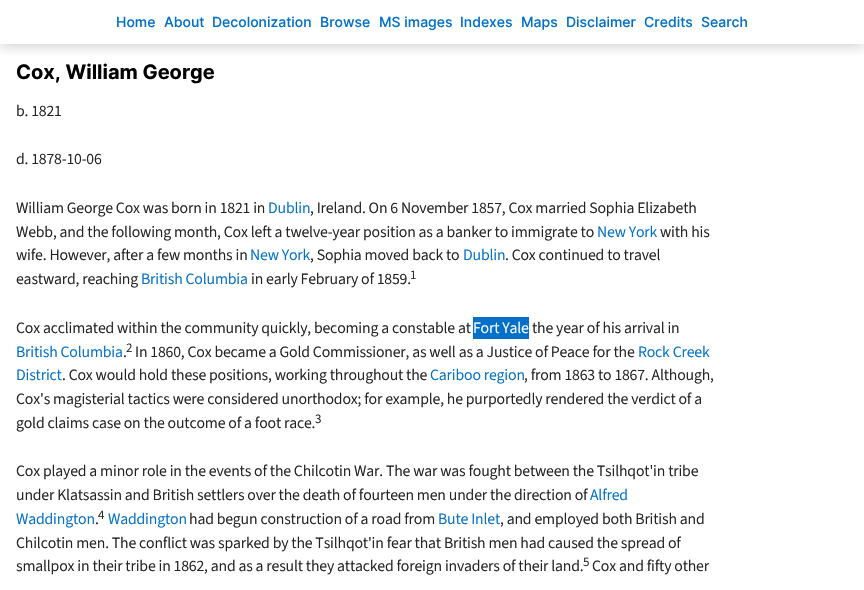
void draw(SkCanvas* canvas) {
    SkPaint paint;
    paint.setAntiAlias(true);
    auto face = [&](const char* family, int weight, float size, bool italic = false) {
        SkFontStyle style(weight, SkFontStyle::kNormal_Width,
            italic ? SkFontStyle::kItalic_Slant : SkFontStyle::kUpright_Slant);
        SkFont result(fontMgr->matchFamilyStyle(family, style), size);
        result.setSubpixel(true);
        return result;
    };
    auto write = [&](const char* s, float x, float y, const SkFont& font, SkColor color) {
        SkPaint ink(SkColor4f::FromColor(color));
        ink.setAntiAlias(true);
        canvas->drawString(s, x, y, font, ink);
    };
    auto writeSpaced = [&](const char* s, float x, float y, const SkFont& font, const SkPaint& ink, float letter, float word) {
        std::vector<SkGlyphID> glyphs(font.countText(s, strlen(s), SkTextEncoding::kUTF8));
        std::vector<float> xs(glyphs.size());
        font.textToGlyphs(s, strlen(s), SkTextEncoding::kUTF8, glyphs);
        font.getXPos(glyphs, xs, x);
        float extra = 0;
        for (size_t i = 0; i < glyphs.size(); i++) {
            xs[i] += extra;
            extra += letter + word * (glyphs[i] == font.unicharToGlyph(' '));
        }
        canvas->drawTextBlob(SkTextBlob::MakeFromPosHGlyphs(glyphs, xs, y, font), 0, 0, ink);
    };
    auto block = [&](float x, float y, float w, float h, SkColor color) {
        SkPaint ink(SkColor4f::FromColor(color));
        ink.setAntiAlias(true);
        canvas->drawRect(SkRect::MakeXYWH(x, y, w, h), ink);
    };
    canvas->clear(SK_ColorWHITE);
    canvas->save();
    canvas->clipRect(SkRect::MakeXYWH(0, 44, 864, 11));
    paint.setColor(SkColorSetARGB(64, 0, 0, 0));
    paint.setMaskFilter(SkMaskFilter::MakeBlur(kNormal_SkBlurStyle, 7.5f));
    canvas->drawRect(SkRect::MakeXYWH(0, 0, 864, 44), paint);
    paint.setMaskFilter(nullptr);
    canvas->restore();
    auto kFont1 = face("Inter", 500, 14);
    write("Home", 116, 27, kFont1, SkColorSetRGB(0, 112, 201));
    write("About", 164, 27, kFont1, SkColorSetRGB(0, 112, 201));
    write("Decolonization", 212, 27, kFont1, SkColorSetRGB(0, 112, 201));
    write("Browse", 320, 27, kFont1, SkColorSetRGB(0, 112, 201));
    write("MS images", 379, 27, kFont1, SkColorSetRGB(0, 112, 201));
    write("Indexes", 460, 27, kFont1, SkColorSetRGB(0, 112, 201));
    write("Maps", 521, 27, kFont1, SkColorSetRGB(0, 112, 201));
    write("Disclaimer", 566, 27, kFont1, SkColorSetRGB(0, 112, 201));
    write("Credits", 644, 27, kFont1, SkColorSetRGB(0, 112, 201));
    write("Search", 701, 27, kFont1, SkColorSetRGB(0, 112, 201));
    auto kFont2 = face("Inter", 700, 20);
    write("Cox, William George", 16, 79, kFont2, SK_ColorBLACK);
    auto kFont3 = face("Source Sans 3", 400, 15.8f);
    paint.setColor(SkColorSetRGB(34, 34, 34));
    writeSpaced("b. 1821", 16, 116, kFont3, paint, -0.17f, 0);
    writeSpaced("d. 1878-10-06", 16, 164, kFont3, paint, -0.17f, 0);
    writeSpaced("William George Cox was born in 1821 in", 16, 213, kFont3, paint, -0.17f, 0);
    paint.setColor(SkColorSetRGB(0, 112, 201));
    writeSpaced("Dublin", 268, 213, kFont3, paint, -0.17f, 0);
    paint.setColor(SkColorSetRGB(34, 34, 34));
    writeSpaced(", Ireland. On 6 November 1857, Cox married Sophia Elizabeth", 310, 213, kFont3, paint, -0.17f, 0);
    writeSpaced("Webb, and the following month, Cox left a twelve-year position as a banker to immigrate to", 16, 237, kFont3, paint, -0.17f, 0);
    paint.setColor(SkColorSetRGB(0, 112, 201));
    writeSpaced("New York", 597, 237, kFont3, paint, -0.17f, 0);
    paint.setColor(SkColorSetRGB(34, 34, 34));
    writeSpaced("with his", 660, 237, kFont3, paint, -0.17f, 0);
    writeSpaced("wife. However, after a few months in", 16, 260, kFont3, paint, -0.17f, 0);
    paint.setColor(SkColorSetRGB(0, 112, 201));
    writeSpaced("New York", 250, 260, kFont3, paint, -0.17f, 0);
    paint.setColor(SkColorSetRGB(34, 34, 34));
    writeSpaced(", Sophia moved back to", 310, 260, kFont3, paint, -0.17f, 0);
    paint.setColor(SkColorSetRGB(0, 112, 201));
    writeSpaced("Dublin", 463, 260, kFont3, paint, -0.17f, 0);
    paint.setColor(SkColorSetRGB(34, 34, 34));
    writeSpaced(". Cox continued to travel", 505, 260, kFont3, paint, -0.17f, 0);
    writeSpaced("eastward, reaching", 16, 284, kFont3, paint, -0.17f, 0);
    paint.setColor(SkColorSetRGB(0, 112, 201));
    writeSpaced("British Columbia", 141, 284, kFont3, paint, -0.17f, 0);
    paint.setColor(SkColorSetRGB(34, 34, 34));
    writeSpaced("in early February of 1859.", 251, 284, kFont3, paint, -0.17f, 0);
    auto kFont4 = face("Source Sans 3", 400, 13);
    writeSpaced("1", 410, 279, kFont4, paint, -0.17f, 0);
    writeSpaced("Cox acclimated within the community quickly, becoming a constable at", 16, 333, kFont3, paint, -0.17f, 0);
    block(473, 317, 56, 22, SkColorSetRGB(0, 112, 201));
    paint.setColor(SK_ColorWHITE);
    writeSpaced("Fort Yale", 473, 333, kFont3, paint, -0.17f, 0);
    paint.setColor(SkColorSetRGB(34, 34, 34));
    writeSpaced("the year of his arrival in", 532, 333, kFont3, paint, -0.17f, 0);
    paint.setColor(SkColorSetRGB(0, 112, 201));
    writeSpaced("British Columbia", 16, 357, kFont3, paint, -0.17f, 0);
    paint.setColor(SkColorSetRGB(34, 34, 34));
    writeSpaced(".", 123, 357, kFont3, paint, -0.17f, 0);
    writeSpaced("2", 126, 352, kFont4, paint, -0.17f, 0);
    writeSpaced("In 1860, Cox became a Gold Commissioner, as well as a Justice of Peace for the", 135, 357, kFont3, paint, -0.17f, 0);
    paint.setColor(SkColorSetRGB(0, 112, 201));
    writeSpaced("Rock Creek", 638, 357, kFont3, paint, -0.17f, 0);
    writeSpaced("District", 16, 380, kFont3, paint, -0.17f, 0);
    paint.setColor(SkColorSetRGB(34, 34, 34));
    writeSpaced(". Cox would hold these positions, working throughout the", 62, 380, kFont3, paint, -0.17f, 0);
    paint.setColor(SkColorSetRGB(0, 112, 201));
    writeSpaced("Cariboo region", 430, 380, kFont3, paint, -0.17f, 0);
    paint.setColor(SkColorSetRGB(34, 34, 34));
    writeSpaced(", from 1863 to 1867. Although,", 524, 380, kFont3, paint, -0.17f, 0);
    writeSpaced("Cox's magisterial tactics were considered unorthodox; for example, he purportedly rendered the verdict of a", 16, 404, kFont3, paint, -0.17f, 0);
    writeSpaced("gold claims case on the outcome of a foot race.", 16, 428, kFont3, paint, -0.17f, 0);
    writeSpaced("3", 315, 423, kFont4, paint, -0.17f, 0);
    writeSpaced("Cox played a minor role in the events of the Chilcotin War. The war was fought between the Tsilhqot'in tribe", 16, 476, kFont3, paint, -0.17f, 0);
    writeSpaced("under Klatsassin and British settlers over the death of fourteen men under the direction of", 16, 500, kFont3, paint, -0.17f, 0);
    paint.setColor(SkColorSetRGB(0, 112, 201));
    writeSpaced("Alfred", 590, 500, kFont3, paint, -0.17f, 0);
    writeSpaced("Waddington", 16, 524, kFont3, paint, -0.17f, 0);
    paint.setColor(SkColorSetRGB(34, 34, 34));
    writeSpaced(".", 95, 524, kFont3, paint, -0.17f, 0);
    writeSpaced("4", 98, 519, kFont4, paint, -0.17f, 0);
    paint.setColor(SkColorSetRGB(0, 112, 201));
    writeSpaced("Waddington", 108, 524, kFont3, paint, -0.17f, 0);
    paint.setColor(SkColorSetRGB(34, 34, 34));
    writeSpaced("had begun construction of a road from", 189, 524, kFont3, paint, -0.17f, 0);
    paint.setColor(SkColorSetRGB(0, 112, 201));
    writeSpaced("Bute Inlet", 438, 524, kFont3, paint, -0.17f, 0);
    paint.setColor(SkColorSetRGB(34, 34, 34));
    writeSpaced(", and employed both British and", 500, 524, kFont3, paint, -0.17f, 0);
    writeSpaced("Chilcotin men. The conflict was sparked by the Tsilhqot'in fear that British men had caused the spread of", 16, 548, kFont3, paint, -0.17f, 0);
    writeSpaced("smallpox in their tribe in 1862, and as a result they attacked foreign invaders of their land.", 16, 571, kFont3, paint, -0.17f, 0);
    writeSpaced("5", 583, 566, kFont4, paint, -0.17f, 0);
    writeSpaced("Cox and fifty other", 592, 571, kFont3, paint, -0.17f, 0);
}
